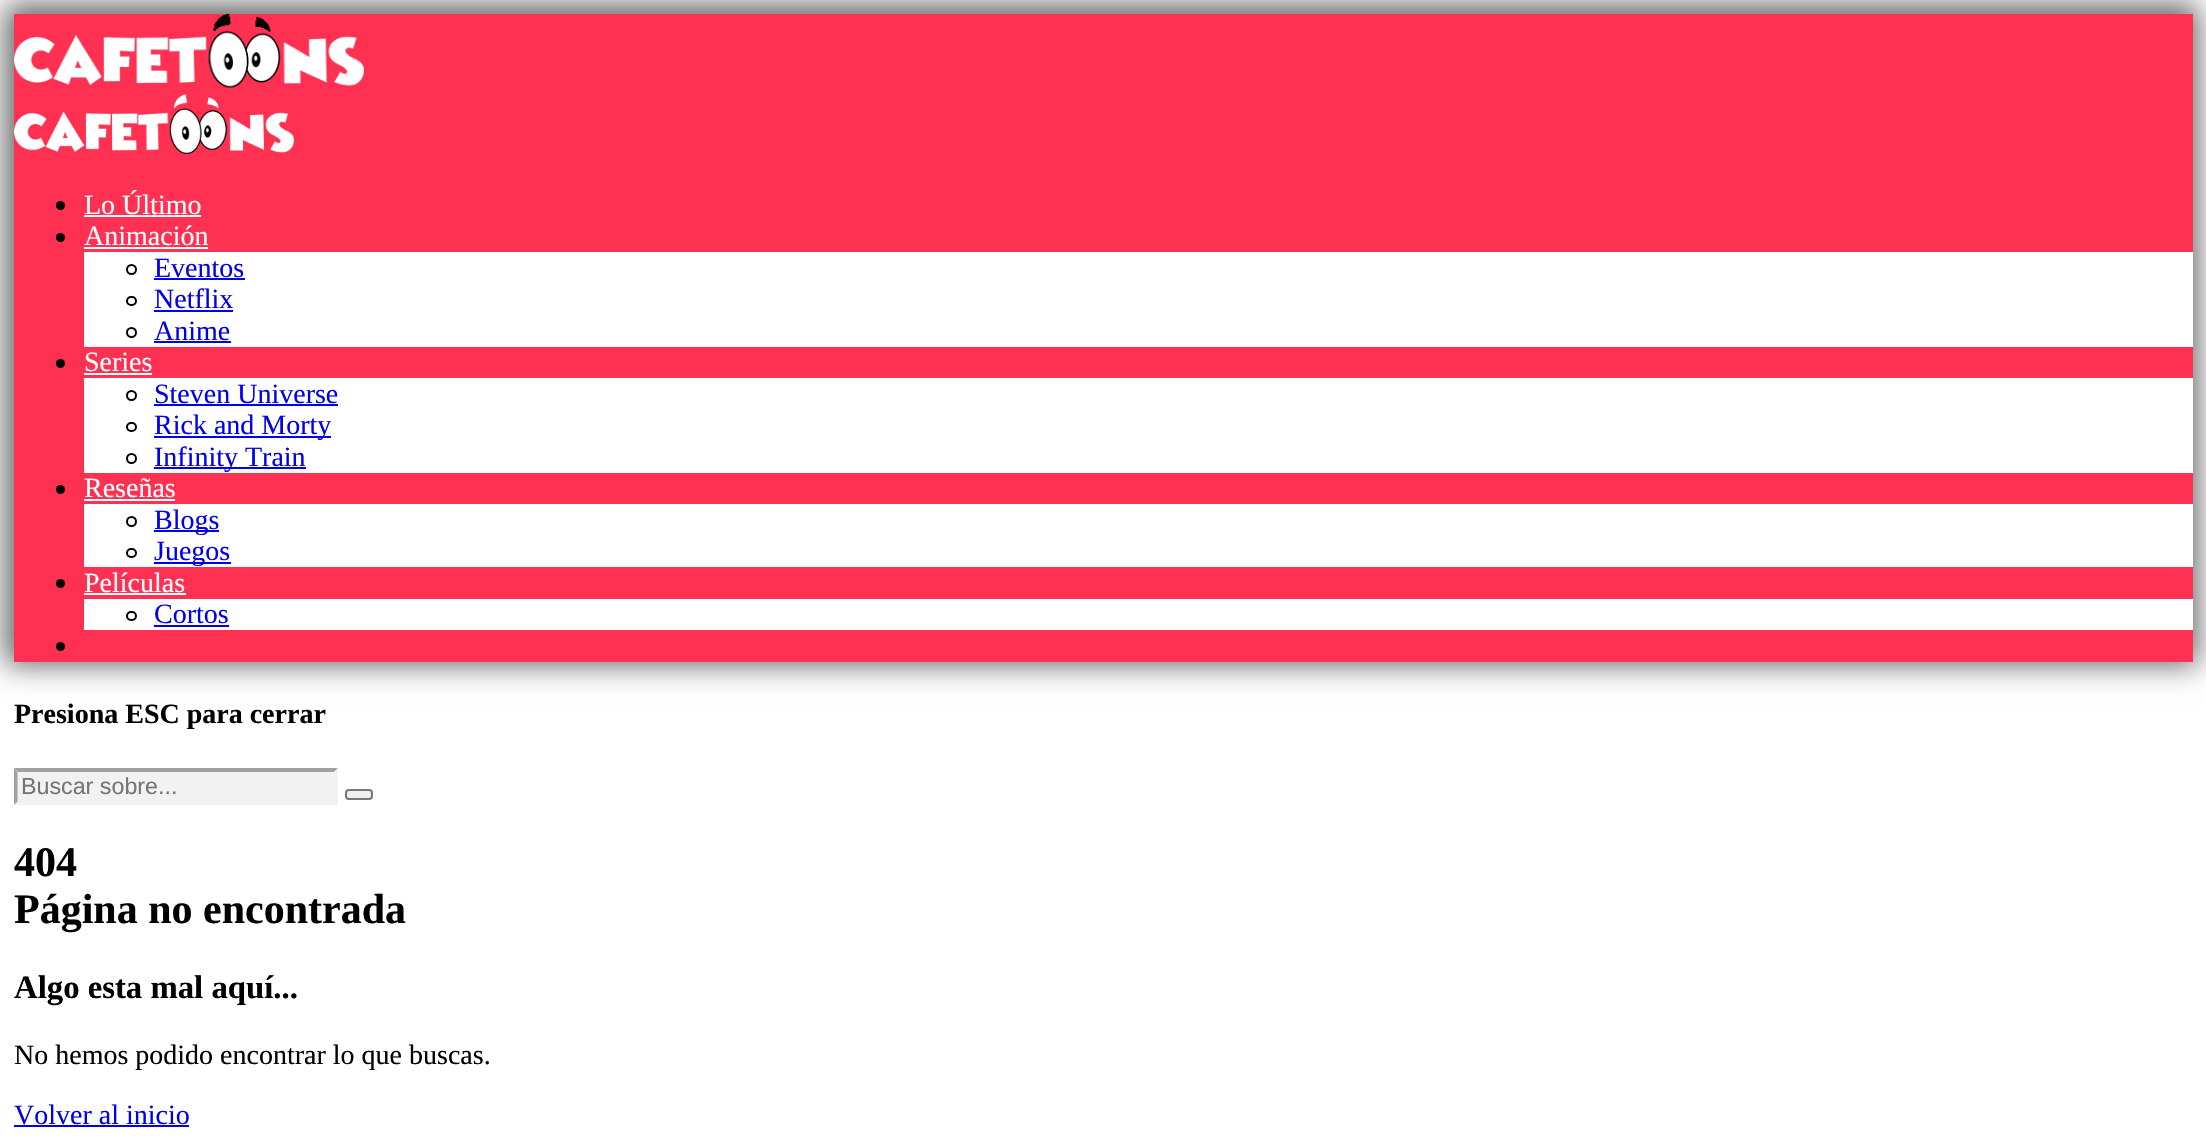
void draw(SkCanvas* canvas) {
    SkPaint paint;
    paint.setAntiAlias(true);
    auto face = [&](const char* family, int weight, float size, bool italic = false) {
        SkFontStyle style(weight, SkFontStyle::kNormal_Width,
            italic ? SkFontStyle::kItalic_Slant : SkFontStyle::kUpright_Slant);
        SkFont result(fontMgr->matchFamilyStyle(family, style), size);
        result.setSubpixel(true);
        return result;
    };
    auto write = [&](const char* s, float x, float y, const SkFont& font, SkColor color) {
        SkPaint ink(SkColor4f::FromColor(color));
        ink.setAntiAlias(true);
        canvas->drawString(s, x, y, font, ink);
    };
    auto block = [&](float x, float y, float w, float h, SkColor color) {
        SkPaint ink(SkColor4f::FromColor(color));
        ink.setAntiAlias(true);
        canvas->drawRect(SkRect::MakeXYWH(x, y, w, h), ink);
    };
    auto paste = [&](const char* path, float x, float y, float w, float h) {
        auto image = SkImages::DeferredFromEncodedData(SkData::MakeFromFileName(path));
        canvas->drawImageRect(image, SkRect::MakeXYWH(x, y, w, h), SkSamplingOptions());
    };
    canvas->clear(SK_ColorWHITE);
    paint.setColor(SkColorSetARGB(153, 0, 0, 0));
    paint.setMaskFilter(SkMaskFilter::MakeBlur(kNormal_SkBlurStyle, 14));
    canvas->drawRect(SkRect::MakeXYWH(5, 4, 2193, 661), paint);
    paint.setMaskFilter(nullptr);
    block(14, 14, 2179, 648, SkColorSetRGB(255, 49, 82));
    paste("pic1.png", 14, 14, 350, 74);
    paste("pic2.png", 14, 94, 280, 60);
    paint.setColor(SK_ColorBLACK);
    canvas->drawCircle(60.5f, 205.5f, 4.5f, paint);
    auto kFont1 = face("Liberation Serif", 400, 28);
    write("Lo Último", 84, 214, kFont1, SK_ColorWHITE);
    block(84, 215, 117, 2, SK_ColorWHITE);
    canvas->drawCircle(60.5f, 237.5f, 4.5f, paint);
    write("Animación", 84, 245, kFont1, SK_ColorWHITE);
    block(84, 247, 124, 2, SK_ColorWHITE);
    block(84, 252, 2109, 95, SK_ColorWHITE);
    paint.setStyle(SkPaint::kStroke_Style);
    paint.setStrokeWidth(2);
    canvas->drawCircle(131.5f, 269.5f, 4.5f, paint);
    write("Eventos", 154, 277, kFont1, SkColorSetRGB(0, 0, 238));
    block(154, 278, 91, 2, SkColorSetRGB(0, 0, 238));
    canvas->drawRoundRect(SkRect::MakeXYWH(127, 297, 9, 8), 4, 4, paint);
    write("Netflix", 154, 308, kFont1, SkColorSetRGB(0, 0, 238));
    block(154, 310, 79, 2, SkColorSetRGB(0, 0, 238));
    canvas->drawCircle(131.5f, 332.5f, 4.5f, paint);
    write("Anime", 154, 340, kFont1, SkColorSetRGB(0, 0, 238));
    block(154, 341, 77, 2, SkColorSetRGB(0, 0, 238));
    paint.setStyle(SkPaint::kFill_Style);
    canvas->drawCircle(60.5f, 363.5f, 4.5f, paint);
    write("Series", 84, 371, kFont1, SK_ColorWHITE);
    block(84, 373, 68, 2, SK_ColorWHITE);
    block(84, 378, 2109, 95, SK_ColorWHITE);
    paint.setStyle(SkPaint::kStroke_Style);
    canvas->drawCircle(131.5f, 395.5f, 4.5f, paint);
    write("Steven Universe", 154, 403, kFont1, SkColorSetRGB(0, 0, 238));
    block(154, 404, 184, 2, SkColorSetRGB(0, 0, 238));
    canvas->drawRoundRect(SkRect::MakeXYWH(127, 423, 9, 8), 4, 4, paint);
    block(154, 436, 177, 2, SkColorSetRGB(0, 0, 238));
    write("Rick and Morty", 154, 434, kFont1, SkColorSetRGB(0, 0, 238));
    canvas->drawCircle(131.5f, 458.5f, 4.5f, paint);
    block(154, 467, 152, 2, SkColorSetRGB(0, 0, 238));
    write("Infinity Train", 154, 466, kFont1, SkColorSetRGB(0, 0, 238));
    paint.setStyle(SkPaint::kFill_Style);
    canvas->drawCircle(60.5f, 489.5f, 4.5f, paint);
    write("Reseñas", 84, 497, kFont1, SK_ColorWHITE);
    block(84, 499, 91, 2, SK_ColorWHITE);
    block(84, 504, 2109, 63, SK_ColorWHITE);
    paint.setStyle(SkPaint::kStroke_Style);
    canvas->drawCircle(131.5f, 521.5f, 4.5f, paint);
    block(154, 530, 65, 2, SkColorSetRGB(0, 0, 238));
    write("Blogs", 154, 529, kFont1, SkColorSetRGB(0, 0, 238));
    canvas->drawRoundRect(SkRect::MakeXYWH(127, 549, 9, 8), 4, 4, paint);
    block(154, 562, 77, 2, SkColorSetRGB(0, 0, 238));
    write("Juegos", 154, 560, kFont1, SkColorSetRGB(0, 0, 238));
    paint.setStyle(SkPaint::kFill_Style);
    canvas->drawCircle(60.5f, 583.5f, 4.5f, paint);
    write("Películas", 84, 592, kFont1, SK_ColorWHITE);
    block(84, 593, 102, 2, SK_ColorWHITE);
    block(84, 599, 2109, 31, SK_ColorWHITE);
    paint.setStyle(SkPaint::kStroke_Style);
    canvas->drawRoundRect(SkRect::MakeXYWH(127, 612, 9, 8), 4, 4, paint);
    write("Cortos", 154, 623, kFont1, SkColorSetRGB(0, 0, 238));
    block(154, 625, 75, 2, SkColorSetRGB(0, 0, 238));
    paint.setStyle(SkPaint::kFill_Style);
    canvas->drawCircle(60.5f, 646.5f, 4.5f, paint);
    auto kFont2 = face("Liberation Serif", 700, 28);
    write("Presiona ESC para cerrar", 14, 723, kFont2, SK_ColorBLACK);
    block(14, 768, 324, 37, SkColorSetRGB(242, 242, 242));
    paint.setColor(SkColorSetRGB(161, 161, 161));
    canvas->drawPath(SkPathBuilder().moveTo(14, 768).lineTo(338, 768).lineTo(334, 772).lineTo(18, 772).close().detach(), paint);
    paint.setColor(SkColorSetRGB(242, 242, 242));
    canvas->drawPath(SkPathBuilder().moveTo(338, 768).lineTo(338, 805).lineTo(334, 801.5f).lineTo(334, 772).close().detach(), paint);
    paint.setColor(SkColorSetRGB(161, 161, 161));
    canvas->drawPath(SkPathBuilder().moveTo(14, 805).lineTo(14, 768).lineTo(17.5f, 772).lineTo(17.5f, 801.5f).close().detach(), paint);
    auto kFont3 = face("Liberation Sans", 400, 23.25f);
    write("Buscar sobre...", 21, 794, kFont3, SkColorSetRGB(117, 117, 117));
    paint.setColor(SkColorSetRGB(239, 239, 239));
    canvas->drawRoundRect(SkRect::MakeXYWH(346, 790, 26, 9), 3, 3, paint);
    paint.setStyle(SkPaint::kStroke_Style);
    paint.setColor(SkColorSetRGB(118, 118, 118));
    canvas->drawRoundRect(SkRect::MakeXYWH(346, 790, 26, 9), 3, 3, paint);
    auto kFont4 = face("Liberation Serif", 700, 42);
    write("404", 14, 876, kFont4, SK_ColorBLACK);
    write("Página no encontrada", 14, 923, kFont4, SK_ColorBLACK);
    auto kFont5 = face("Liberation Serif", 700, 32.75f);
    write("Algo esta mal aquí...", 14, 998, kFont5, SK_ColorBLACK);
    write("No hemos podido encontrar lo que buscas.", 14, 1064, kFont1, SK_ColorBLACK);
    write("Volver al inicio", 14, 1124, kFont1, SkColorSetRGB(0, 0, 238));
    block(14, 1125, 175, 2, SkColorSetRGB(0, 0, 238));
}
